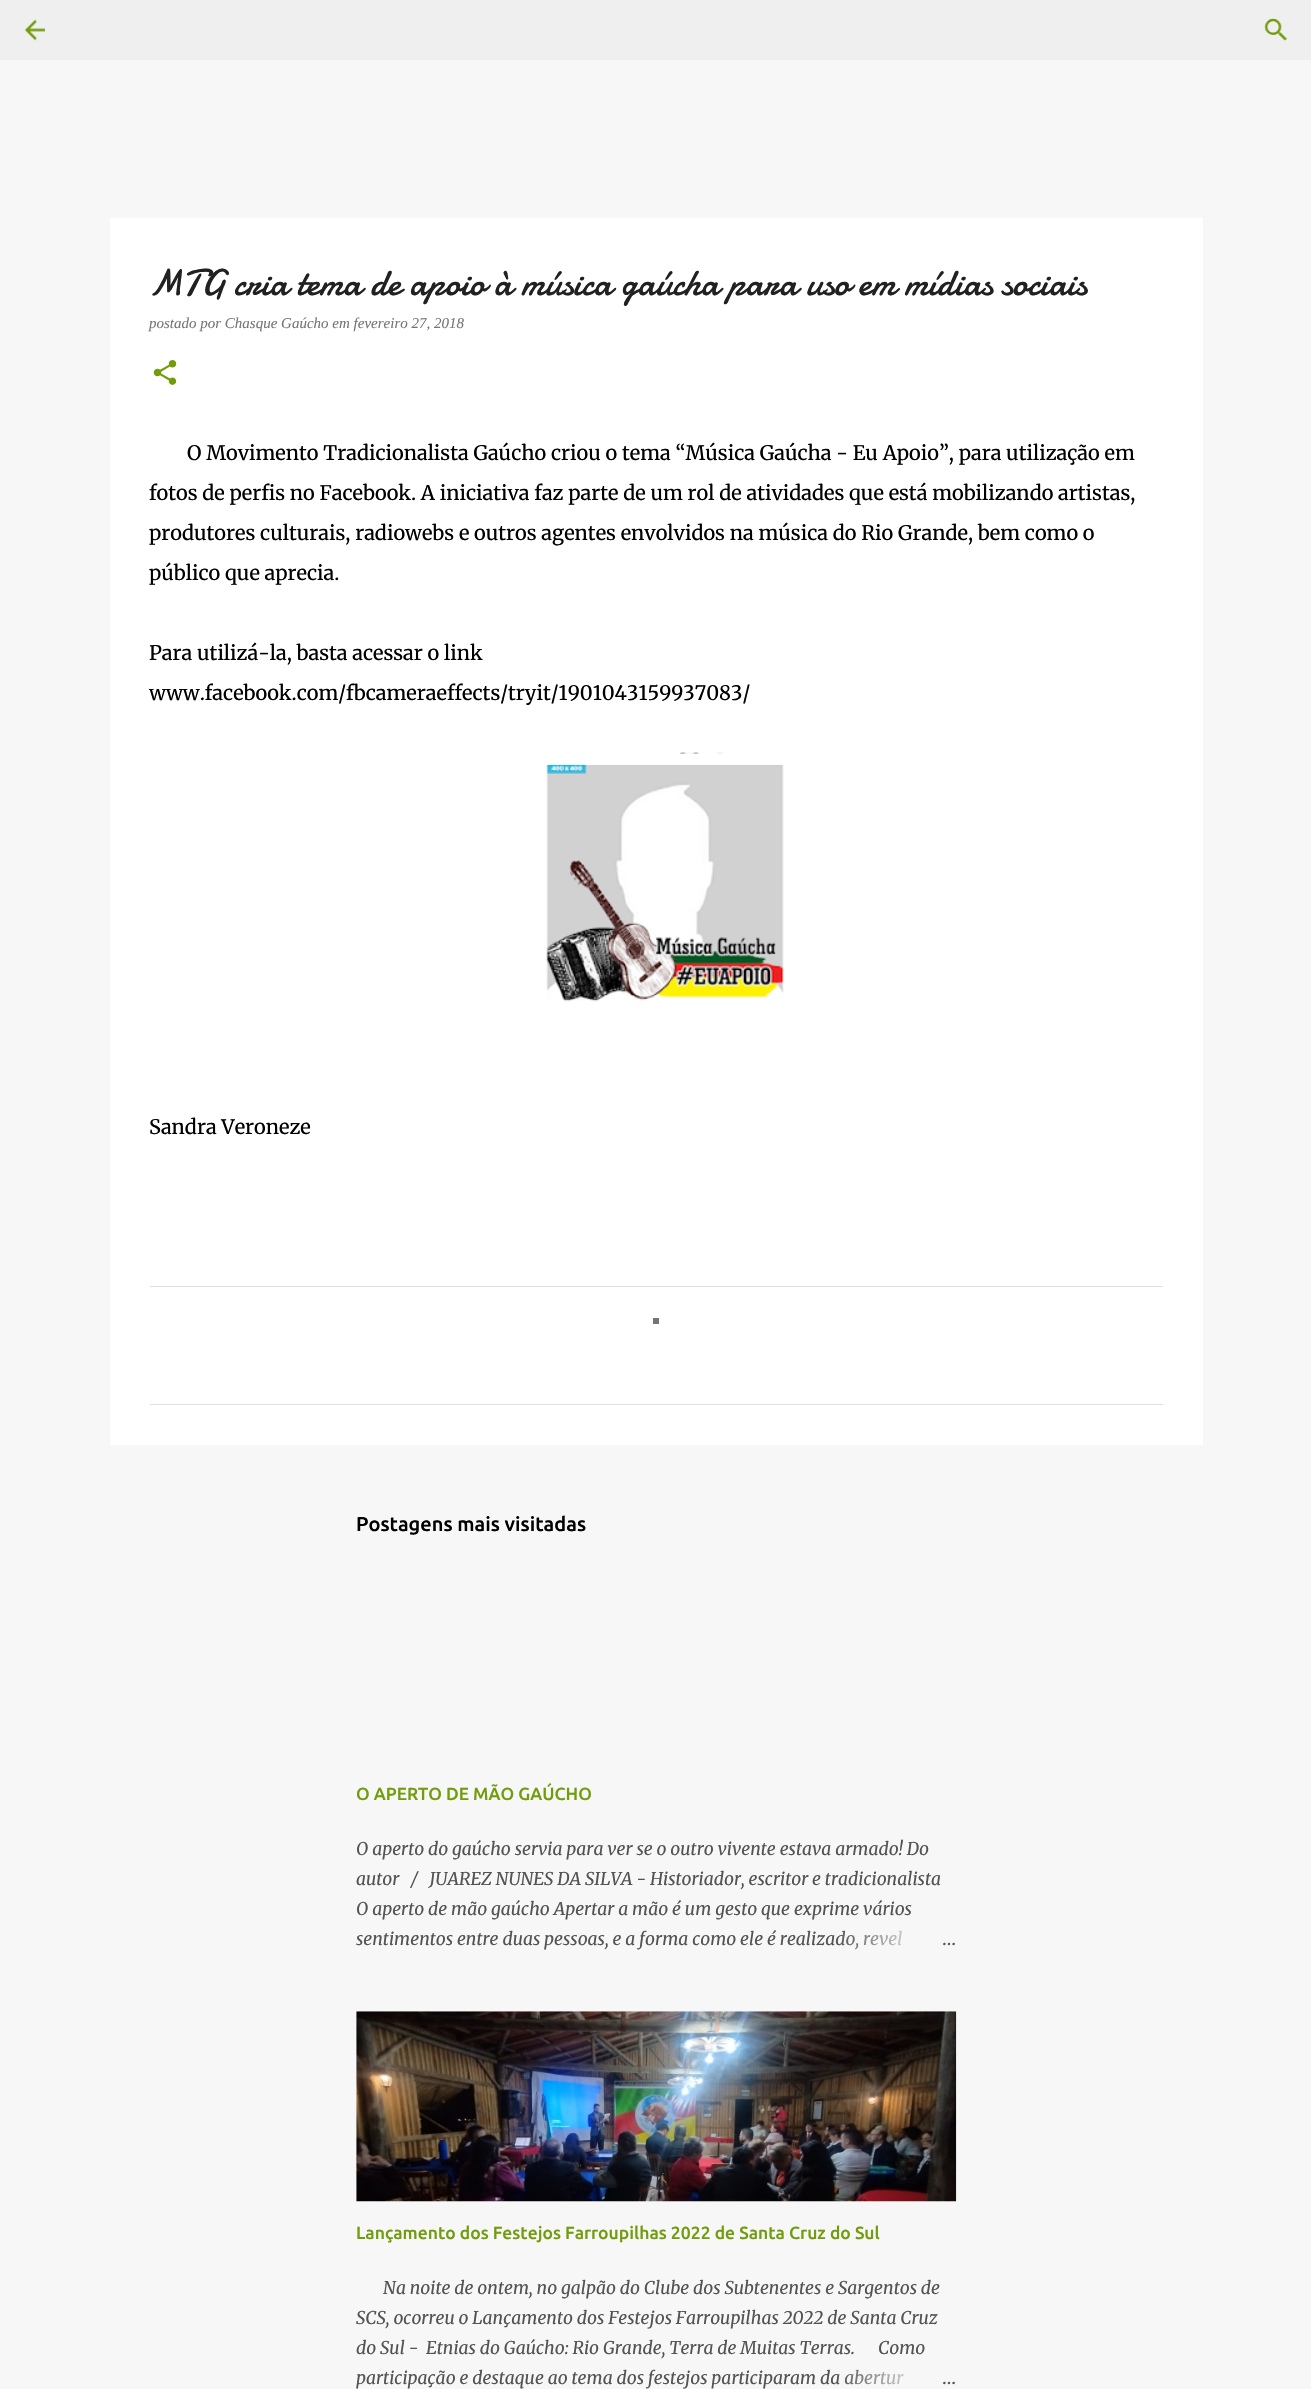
void draw(SkCanvas* canvas) {
    SkPaint paint;
    paint.setAntiAlias(true);
    auto face = [&](const char* family, int weight, float size, bool italic = false) {
        SkFontStyle style(weight, SkFontStyle::kNormal_Width,
            italic ? SkFontStyle::kItalic_Slant : SkFontStyle::kUpright_Slant);
        SkFont result(fontMgr->matchFamilyStyle(family, style), size);
        result.setSubpixel(true);
        return result;
    };
    auto write = [&](const char* s, float x, float y, const SkFont& font, SkColor color) {
        SkPaint ink(SkColor4f::FromColor(color));
        ink.setAntiAlias(true);
        canvas->drawString(s, x, y, font, ink);
    };
    auto block = [&](float x, float y, float w, float h, SkColor color) {
        SkPaint ink(SkColor4f::FromColor(color));
        ink.setAntiAlias(true);
        canvas->drawRect(SkRect::MakeXYWH(x, y, w, h), ink);
    };
    auto paste = [&](const char* path, float x, float y, float w, float h) {
        auto image = SkImages::DeferredFromEncodedData(SkData::MakeFromFileName(path));
        canvas->drawImageRect(image, SkRect::MakeXYWH(x, y, w, h), SkSamplingOptions());
    };
    canvas->clear(SkColorSetRGB(247, 247, 247));
    block(0, 0, 1311, 60, SkColorSetRGB(239, 239, 239));
    paste("pic1.png", 25, 19, 20, 22);
    paste("pic2.png", 1264, 18, 24, 23);
    block(110, 218, 1093, 1227, SK_ColorWHITE);
    block(150, 1286, 1013, 1, SkColorSetRGB(224, 224, 224));
    block(150, 1404, 1013, 1, SkColorSetRGB(224, 224, 224));
    auto kFont1 = face("Damion", 400, 37.5f);
    write("MTG cria tema de apoio à música gaúcha para uso em mídias sociais", 149, 295, kFont1, SkColorSetRGB(33, 33, 33));
    auto kFont2 = face("Liberation Serif", 400, 15, true);
    write("postado por Chasque Gaúcho em fevereiro 27, 2018", 149, 328, kFont2, SkColorSetRGB(117, 117, 117));
    paste("pic3.png", 153, 360, 24, 25);
    auto kFont3 = face("Merriweather", 300, 20);
    write("O Movimento Tradicionalista Gaúcho criou o tema “Música Gaúcha - Eu Apoio”, para utilização em", 187, 460, kFont3, SK_ColorBLACK);
    write("fotos de perfis no Facebook. A iniciativa faz parte de um rol de atividades que está mobilizando artistas,", 149, 500, kFont3, SK_ColorBLACK);
    write("produtores culturais, radiowebs e outros agentes envolvidos na música do Rio Grande, bem como o", 149, 540, kFont3, SK_ColorBLACK);
    write("público que aprecia.", 149, 580, kFont3, SK_ColorBLACK);
    write("Para utilizá-la, basta acessar o link", 149, 660, kFont3, SK_ColorBLACK);
    write("www.facebook.com/fbcameraeffects/tryit/1901043159937083/", 149, 700, kFont3, SK_ColorBLACK);
    paste("pic4.png", 546, 752, 238, 250);
    write("Sandra Veroneze", 149, 1134, kFont3, SK_ColorBLACK);
    auto kFont4 = face("Ubuntu", 500, 20);
    write("Postagens mais visitadas", 356, 1531, kFont4, SK_ColorBLACK);
    auto kFont5 = face("Ubuntu", 500, 17.5f);
    write("O APERTO DE MÃO GAÚCHO", 356, 1800, kFont5, SkColorSetRGB(114, 156, 11));
    auto kFont6 = face("Merriweather", 400, 17.5f, true);
    write("O aperto do gaúcho servia para ver se o outro vivente estava armado! Do", 356, 1855, kFont6, SkColorSetRGB(83, 83, 83));
    write("autor   /   JUAREZ NUNES DA SILVA - Historiador, escritor e tradicionalista", 356, 1885, kFont6, SkColorSetRGB(83, 83, 83));
    write("O aperto de mão gaúcho Apertar a mão é um gesto que exprime vários", 356, 1915, kFont6, SkColorSetRGB(83, 83, 83));
    write("sentimentos entre duas pessoas, e a forma como ele é realizado, revel", 356, 1945, kFont6, SkColorSetRGB(83, 83, 83));
    {
        const SkColor colors[] = {SkColorSetRGB(247, 247, 247), SkColorSetRGB(247, 247, 247), SkColorSetARGB(0, 247, 247, 247)};
        const float stops[] = {0, 0.2f, 1};
        const SkPoint ends[] = {{956, 1939}, {836, 1939}};
        paint.setShader(SkGradientShader::MakeLinear(ends, colors, stops, 3, SkTileMode::kClamp));
        paint.setAlpha(255);
    }
    canvas->drawRect(SkRect::MakeXYWH(838, 1930, 64, 20), paint);
    auto kFont7 = face("Merriweather", 300, 17.5f);
    write("…", 942, 1945, kFont7, SkColorSetRGB(83, 83, 83));
    paste("pic5.png", 356, 2011, 601, 191);
    write("Lançamento dos Festejos Farroupilhas 2022 de Santa Cruz do Sul", 356, 2239, kFont5, SkColorSetRGB(114, 156, 11));
    write("Na noite de ontem, no galpão do Clube dos Subtenentes e Sargentos de", 383, 2294, kFont6, SkColorSetRGB(83, 83, 83));
    write("SCS, ocorreu o Lançamento dos Festejos Farroupilhas 2022 de Santa Cruz", 356, 2324, kFont6, SkColorSetRGB(83, 83, 83));
    write("do Sul -  Etnias do Gaúcho: Rio Grande, Terra de Muitas Terras.      Como", 356, 2354, kFont6, SkColorSetRGB(83, 83, 83));
    write("participação e destaque ao tema dos festejos participaram da abertur", 356, 2384, kFont6, SkColorSetRGB(83, 83, 83));
    {
        const SkColor colors[] = {SkColorSetRGB(247, 247, 247), SkColorSetRGB(247, 247, 247), SkColorSetARGB(0, 247, 247, 247)};
        const float stops[] = {0, 0.2f, 1};
        const SkPoint ends[] = {{956, 2378}, {836, 2378}};
        paint.setShader(SkGradientShader::MakeLinear(ends, colors, stops, 3, SkTileMode::kClamp));
        paint.setAlpha(255);
    }
    canvas->drawRect(SkRect::MakeXYWH(838, 2369, 66, 16), paint);
    write("…", 942, 2384, kFont7, SkColorSetRGB(83, 83, 83));
    block(653, 1318, 6, 6, SkColorSetRGB(117, 117, 117));
}
